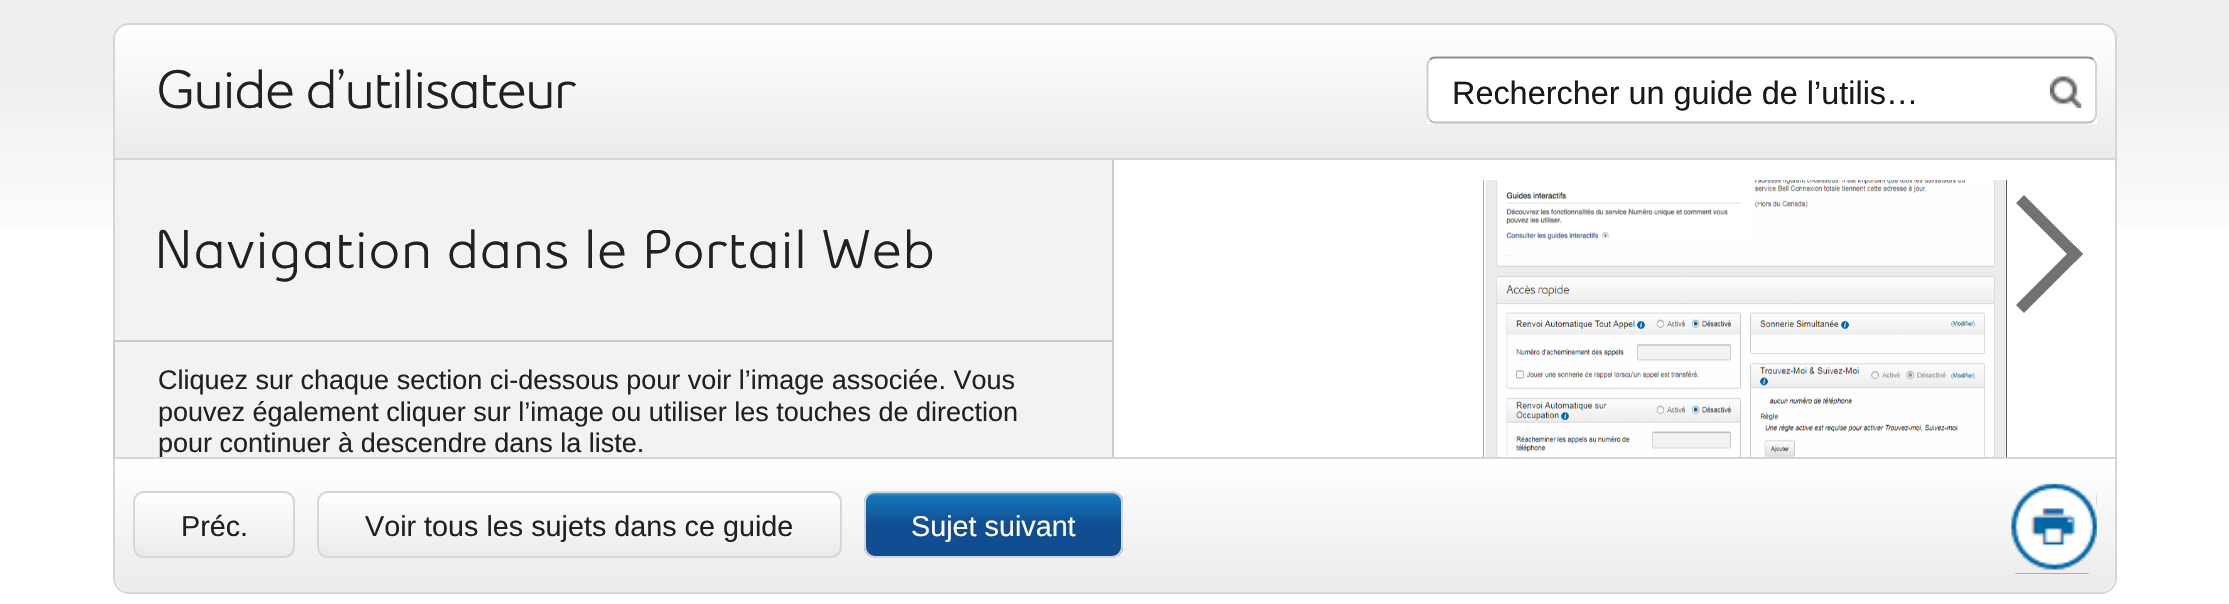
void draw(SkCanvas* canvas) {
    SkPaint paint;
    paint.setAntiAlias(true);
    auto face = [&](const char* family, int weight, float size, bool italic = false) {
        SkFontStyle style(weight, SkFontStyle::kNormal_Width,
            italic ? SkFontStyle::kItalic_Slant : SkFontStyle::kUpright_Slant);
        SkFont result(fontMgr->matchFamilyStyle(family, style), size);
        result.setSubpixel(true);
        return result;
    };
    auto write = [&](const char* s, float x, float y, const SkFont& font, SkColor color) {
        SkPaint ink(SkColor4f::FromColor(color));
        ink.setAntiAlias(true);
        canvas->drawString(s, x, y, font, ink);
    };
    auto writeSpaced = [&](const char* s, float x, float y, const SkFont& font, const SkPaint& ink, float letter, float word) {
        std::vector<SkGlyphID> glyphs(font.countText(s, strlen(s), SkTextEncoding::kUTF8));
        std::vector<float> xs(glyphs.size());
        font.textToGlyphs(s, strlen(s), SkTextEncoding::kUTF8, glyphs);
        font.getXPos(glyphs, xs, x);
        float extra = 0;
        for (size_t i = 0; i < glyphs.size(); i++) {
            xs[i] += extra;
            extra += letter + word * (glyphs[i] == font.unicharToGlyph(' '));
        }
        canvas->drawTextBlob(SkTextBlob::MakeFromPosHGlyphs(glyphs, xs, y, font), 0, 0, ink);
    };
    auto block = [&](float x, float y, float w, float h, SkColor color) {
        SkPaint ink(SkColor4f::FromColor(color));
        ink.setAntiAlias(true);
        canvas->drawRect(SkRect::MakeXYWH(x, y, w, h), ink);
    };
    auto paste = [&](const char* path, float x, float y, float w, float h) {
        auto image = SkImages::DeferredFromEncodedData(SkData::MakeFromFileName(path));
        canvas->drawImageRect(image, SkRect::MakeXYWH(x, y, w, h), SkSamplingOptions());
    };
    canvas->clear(SK_ColorWHITE);
    {
        const SkColor colors[] = {SkColorSetRGB(239, 239, 239), SK_ColorWHITE};
        const float stops[] = {0.1f, 0.4f};
        const SkPoint ends[] = {{1115, 0}, {1115, 594}};
        paint.setShader(SkGradientShader::MakeLinear(ends, colors, stops, 2, SkTileMode::kClamp));
        paint.setAlpha(255);
    }
    canvas->drawRect(SkRect::MakeXYWH(0, 0, 2229, 23), paint);
    {
        const SkColor colors[] = {SkColorSetRGB(239, 239, 239), SK_ColorWHITE};
        const float stops[] = {0.1f, 0.4f};
        const SkPoint ends[] = {{1115, 22}, {1115, 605}};
        paint.setShader(SkGradientShader::MakeLinear(ends, colors, stops, 2, SkTileMode::kClamp));
        paint.setAlpha(255);
    }
    canvas->drawRect(SkRect::MakeXYWH(0, 23, 2229, 205), paint);
    paint.setShader(nullptr);
    paint.setColor(SK_ColorWHITE);
    canvas->drawRoundRect(SkRect::MakeXYWH(114, 24, 2002, 569), 15, 15, paint);
    paint.setStyle(SkPaint::kStroke_Style);
    paint.setStrokeWidth(2);
    paint.setColor(SkColorSetRGB(214, 214, 214));
    canvas->drawRoundRect(SkRect::MakeXYWH(114, 24, 2002, 569), 15, 15, paint);
    paint.setStyle(SkPaint::kFill_Style);
    {
        const SkColor colors[] = {SK_ColorWHITE, SkColorSetRGB(235, 235, 235)};
        const float stops[] = {0, 1};
        const SkPoint ends[] = {{1115, 25}, {1115, 158}};
        paint.setShader(SkGradientShader::MakeLinear(ends, colors, stops, 2, SkTileMode::kClamp));
        paint.setAlpha(255);
    }
    canvas->drawPath(SkPathBuilder().moveTo(131, 25).lineTo(2099, 25).cubicTo(2108, 25, 2115, 32, 2115, 41).lineTo(2115, 158).lineTo(115, 158).lineTo(115, 41).cubicTo(115, 32, 122, 25, 131, 25).close().detach(), paint);
    block(115, 158, 2000, 2, SkColorSetRGB(214, 214, 214));
    auto kFont1 = face("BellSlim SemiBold", 600, 54);
    paint.setShader(nullptr);
    paint.setColor(SkColorSetRGB(33, 33, 33));
    writeSpaced("Guide d’utilisateur", 156, 108, kFont1, paint, -2.25f, 0);
    block(1427, 56, 670, 68, SK_ColorWHITE);
    paint.setStyle(SkPaint::kStroke_Style);
    paint.setStrokeWidth(2.2f);
    paint.setColor(SkColorSetRGB(142, 142, 142));
    canvas->drawPath(SkPathBuilder().moveTo(1430, 59.5f).cubicTo(1431.5f, 58, 1433.5f, 57.5f, 1435.5f, 57.5f).lineTo(2088, 57.5f).cubicTo(2090, 57.5f, 2092, 58, 2093.5f, 59.5f).detach(), paint);
    paint.setColor(SkColorSetRGB(212, 212, 212));
    canvas->drawPath(SkPathBuilder().moveTo(2093.5f, 59.5f).cubicTo(2095, 61, 2096, 63, 2096, 65).lineTo(2096, 115).cubicTo(2096, 117, 2095, 119, 2093.5f, 120.5f).detach(), paint);
    paint.setColor(SkColorSetRGB(189, 189, 189));
    canvas->drawPath(SkPathBuilder().moveTo(2093.5f, 120.5f).cubicTo(2092, 122, 2090, 122.5f, 2088, 122.5f).lineTo(1435.5f, 122.5f).cubicTo(1433.5f, 122.5f, 1431.5f, 122, 1430, 120.5f).detach(), paint);
    paint.setColor(SkColorSetRGB(212, 212, 212));
    canvas->drawPath(SkPathBuilder().moveTo(1430, 120.5f).cubicTo(1428.5f, 119, 1427.5f, 117, 1427.5f, 115).lineTo(1427.5f, 65).cubicTo(1427.5f, 63, 1428.5f, 61, 1430, 59.5f).detach(), paint);
    auto kFont2 = face("Liberation Sans", 400, 32.4f);
    write("Rechercher un guide de l’utilis…", 1452, 104, kFont2, SkColorSetRGB(25, 25, 25));
    paste("pic1.png", 2049, 76, 33, 32);
    block(115, 160, 997, 180, SkColorSetRGB(242, 242, 242));
    block(1112, 160, 2, 180, SkColorSetRGB(204, 204, 204));
    write("Navigation dans le Portail Web", 154, 268, kFont1, SkColorSetRGB(33, 33, 33));
    block(115, 342, 997, 115, SkColorSetRGB(242, 242, 242));
    block(113, 340, 1001, 2, SkColorSetRGB(204, 204, 204));
    block(1112, 340, 2, 117, SkColorSetRGB(204, 204, 204));
    block(113, 340, 2, 117, SkColorSetRGB(204, 204, 204));
    auto kFont3 = face("Liberation Sans", 400, 27);
    write("Cliquez sur chaque section ci-dessous pour voir l’image associée. Vous", 158, 389, kFont3, SkColorSetRGB(33, 33, 33));
    write("pouvez également cliquer sur l’image ou utiliser les touches de direction", 158, 421, kFont3, SkColorSetRGB(33, 33, 33));
    write("pour continuer à descendre dans la liste.", 158, 452, kFont3, SkColorSetRGB(33, 33, 33));
    paste("pic2.png", 1483, 180, 524, 277);
    paint.setStyle(SkPaint::kFill_Style);
    paint.setColor(SkColorSetRGB(114, 114, 114));
    canvas->drawPath(SkPathBuilder().moveTo(2024, 195).lineTo(2083, 254).lineTo(2075, 262).lineTo(2016, 203).close().detach(), paint);
    canvas->drawPath(SkPathBuilder().moveTo(2075, 246).lineTo(2083, 254).lineTo(2024, 313).lineTo(2016, 305).close().detach(), paint);
    {
        const SkColor colors[] = {SK_ColorWHITE, SkColorSetRGB(235, 235, 235)};
        const float stops[] = {0, 1};
        const SkPoint ends[] = {{1115, 459}, {1115, 592}};
        paint.setShader(SkGradientShader::MakeLinear(ends, colors, stops, 2, SkTileMode::kClamp));
        paint.setAlpha(255);
    }
    canvas->drawPath(SkPathBuilder().moveTo(115, 459).lineTo(2115, 459).lineTo(2115, 576).cubicTo(2115, 585, 2108, 592, 2099, 592).lineTo(131, 592).cubicTo(122, 592, 115, 585, 115, 576).close().detach(), paint);
    block(115, 457, 2000, 2, SkColorSetRGB(214, 214, 214));
    canvas->save();
    canvas->clipPath(SkPathBuilder().moveTo(144, 491).lineTo(284, 491).cubicTo(290, 491, 295, 496, 295, 502).lineTo(295, 547).cubicTo(295, 553, 290, 558, 284, 558).lineTo(144, 558).cubicTo(138, 558, 133, 553, 133, 547).lineTo(133, 502).cubicTo(133, 496, 138, 491, 144, 491).close().detach(), true);
    {
        const SkColor colors[] = {SK_ColorWHITE, SkColorSetRGB(235, 235, 235)};
        const float stops[] = {0, 1};
        const SkPoint ends[] = {{214, 493}, {214, 556}};
        paint.setShader(SkGradientShader::MakeLinear(ends, colors, stops, 2, SkTileMode::kClamp));
        paint.setAlpha(255);
    }
    canvas->drawRect(SkRect::MakeXYWH(133, 493, 162, 63), paint);
    canvas->restore();
    paint.setStyle(SkPaint::kStroke_Style);
    paint.setStrokeWidth(2);
    paint.setShader(nullptr);
    paint.setColor(SkColorSetRGB(214, 214, 214));
    canvas->drawRoundRect(SkRect::MakeXYWH(134, 492, 160, 65), 10, 10, paint);
    auto kFont4 = face("Liberation Sans", 400, 28.75f);
    write("Préc.", 181, 536, kFont4, SkColorSetRGB(33, 33, 33));
    canvas->save();
    canvas->clipPath(SkPathBuilder().moveTo(328, 491).lineTo(831, 491).cubicTo(837, 491, 842, 496, 842, 502).lineTo(842, 547).cubicTo(842, 553, 837, 558, 831, 558).lineTo(328, 558).cubicTo(322, 558, 317, 553, 317, 547).lineTo(317, 502).cubicTo(317, 496, 322, 491, 328, 491).close().detach(), true);
    paint.setStyle(SkPaint::kFill_Style);
    {
        const SkColor colors[] = {SK_ColorWHITE, SkColorSetRGB(235, 235, 235)};
        const float stops[] = {0, 1};
        const SkPoint ends[] = {{579, 493}, {579, 556}};
        paint.setShader(SkGradientShader::MakeLinear(ends, colors, stops, 2, SkTileMode::kClamp));
        paint.setAlpha(255);
    }
    canvas->drawRect(SkRect::MakeXYWH(317, 493, 525, 63), paint);
    canvas->restore();
    paint.setStyle(SkPaint::kStroke_Style);
    paint.setShader(nullptr);
    paint.setColor(SkColorSetRGB(214, 214, 214));
    canvas->drawRoundRect(SkRect::MakeXYWH(318, 492, 523, 65), 10, 10, paint);
    write("Voir tous les sujets dans ce guide", 365, 536, kFont4, SkColorSetRGB(33, 33, 33));
    canvas->save();
    canvas->clipPath(SkPathBuilder().moveTo(875, 491).lineTo(1112, 491).cubicTo(1118, 491, 1123, 496, 1123, 502).lineTo(1123, 547).cubicTo(1123, 553, 1118, 558, 1112, 558).lineTo(875, 558).cubicTo(869, 558, 864, 553, 864, 547).lineTo(864, 502).cubicTo(864, 496, 869, 491, 875, 491).close().detach(), true);
    paint.setStyle(SkPaint::kFill_Style);
    {
        const SkColor colors[] = {SkColorSetRGB(73, 151, 204), SkColorSetRGB(19, 118, 186), SkColorSetRGB(17, 78, 145)};
        const float stops[] = {0, 0.05f, 0.5f};
        const SkPoint ends[] = {{993, 493}, {993, 556}};
        paint.setShader(SkGradientShader::MakeLinear(ends, colors, stops, 3, SkTileMode::kClamp));
        paint.setAlpha(255);
    }
    canvas->drawRect(SkRect::MakeXYWH(864, 493, 259, 63), paint);
    canvas->restore();
    paint.setStyle(SkPaint::kStroke_Style);
    paint.setShader(nullptr);
    paint.setColor(SkColorSetRGB(214, 214, 214));
    canvas->drawRoundRect(SkRect::MakeXYWH(865, 492, 257, 65), 10, 10, paint);
    write("Sujet suivant", 911, 536, kFont4, SK_ColorWHITE);
    paste("pic3.png", 2011, 483, 86, 91);
}
